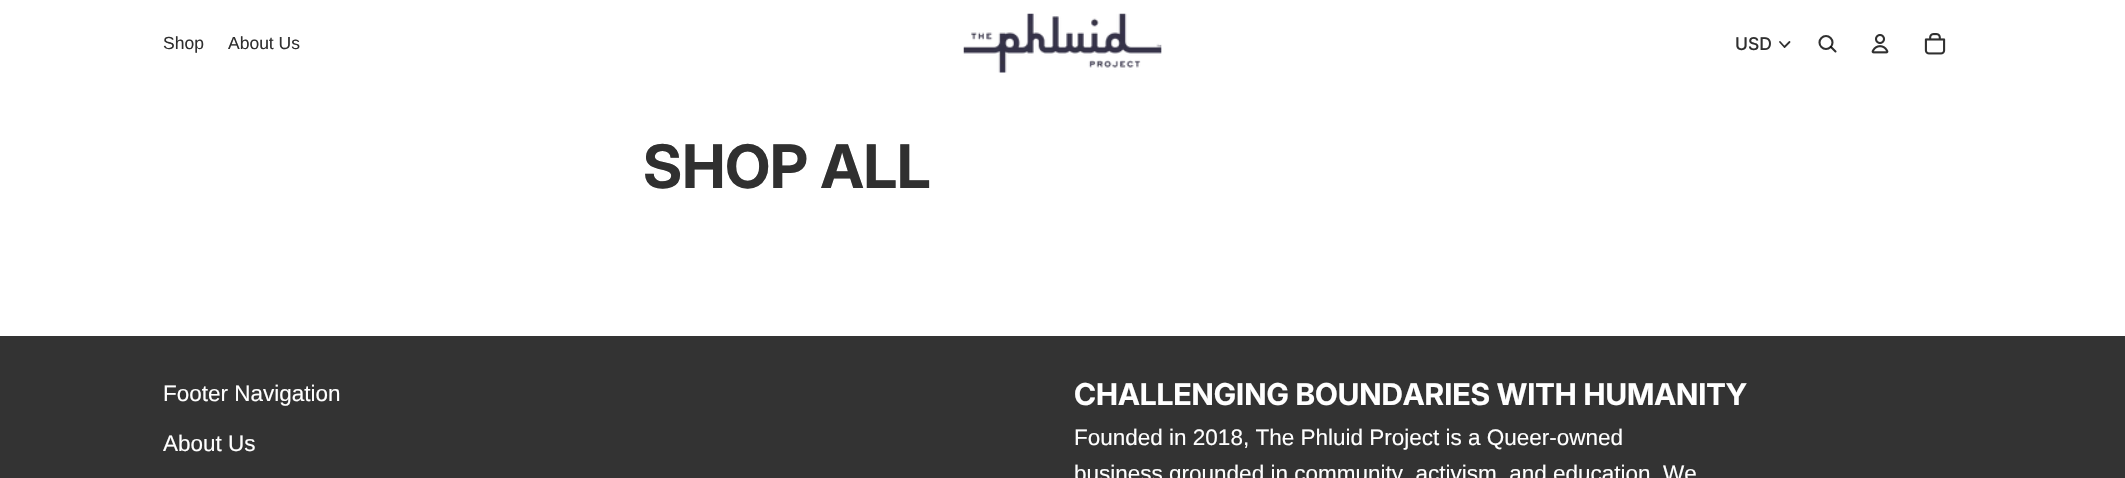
void draw(SkCanvas* canvas) {
    SkPaint paint;
    paint.setAntiAlias(true);
    auto face = [&](const char* family, int weight, float size, bool italic = false) {
        SkFontStyle style(weight, SkFontStyle::kNormal_Width,
            italic ? SkFontStyle::kItalic_Slant : SkFontStyle::kUpright_Slant);
        SkFont result(fontMgr->matchFamilyStyle(family, style), size);
        result.setSubpixel(true);
        return result;
    };
    auto write = [&](const char* s, float x, float y, const SkFont& font, SkColor color) {
        SkPaint ink(SkColor4f::FromColor(color));
        ink.setAntiAlias(true);
        canvas->drawString(s, x, y, font, ink);
    };
    auto block = [&](float x, float y, float w, float h, SkColor color) {
        SkPaint ink(SkColor4f::FromColor(color));
        ink.setAntiAlias(true);
        canvas->drawRect(SkRect::MakeXYWH(x, y, w, h), ink);
    };
    auto paste = [&](const char* path, float x, float y, float w, float h) {
        auto image = SkImages::DeferredFromEncodedData(SkData::MakeFromFileName(path));
        canvas->drawImageRect(image, SkRect::MakeXYWH(x, y, w, h), SkSamplingOptions());
    };
    canvas->clear(SK_ColorWHITE);
    auto kFont1 = face("Liberation Sans", 400, 17.5f);
    write("Shop", 163, 49, kFont1, SkColorSetRGB(48, 48, 48));
    write("About Us", 228, 49, kFont1, SkColorSetRGB(48, 48, 48));
    paste("pic1.png", 963, 13, 199, 60);
    auto kFont2 = face("Inter", 500, 17.5f);
    write("USD", 1735, 50, kFont2, SkColorSetRGB(48, 48, 48));
    paint.setStyle(SkPaint::kStroke_Style);
    paint.setStrokeWidth(1.8f);
    paint.setStrokeCap(SkPaint::kRound_Cap);
    paint.setStrokeJoin(SkPaint::kRound_Join);
    paint.setColor(SkColorSetRGB(48, 48, 48));
    canvas->drawPath(SkPathBuilder().moveTo(1789.5f, 42).lineTo(1784.5f, 47).lineTo(1780, 42).detach(), paint);
    paint.setStrokeWidth(2.1f);
    paint.setStrokeCap(SkPaint::kButt_Cap);
    paint.setStrokeJoin(SkPaint::kMiter_Join);
    canvas->drawCircle(1826, 42.5f, 6.5f, paint);
    paint.setStrokeCap(SkPaint::kRound_Cap);
    paint.setStrokeJoin(SkPaint::kRound_Join);
    paint.setColor(SkColorSetARGB(207, 0, 0, 0));
    canvas->drawPath(SkPathBuilder().moveTo(1831, 47).lineTo(1835.5f, 51.5f).detach(), paint);
    paste("pic2.png", 1871, 34, 18, 20);
    paste("pic3.png", 1924, 33, 22, 22);
    auto kFont3 = face("Inter", 700, 60);
    write("SHOP ALL", 643, 188, kFont3, SkColorSetRGB(48, 48, 48));
    block(0, 336, 2125, 142, SkColorSetRGB(51, 51, 51));
    auto kFont4 = face("Liberation Sans", 400, 22.5f);
    write("Footer Navigation", 163, 401, kFont4, SK_ColorWHITE);
    write("About Us", 163, 451, kFont4, SK_ColorWHITE);
    auto kFont5 = face("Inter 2", 700, 30);
    write("CHALLENGING BOUNDARIES WITH HUMANITY", 1074, 405, kFont5, SK_ColorWHITE);
    write("Founded in 2018, The Phluid Project is a Queer-owned", 1074, 445, kFont4, SK_ColorWHITE);
    write("business grounded in community, activism, and education. We", 1074, 481, kFont4, SK_ColorWHITE);
}
